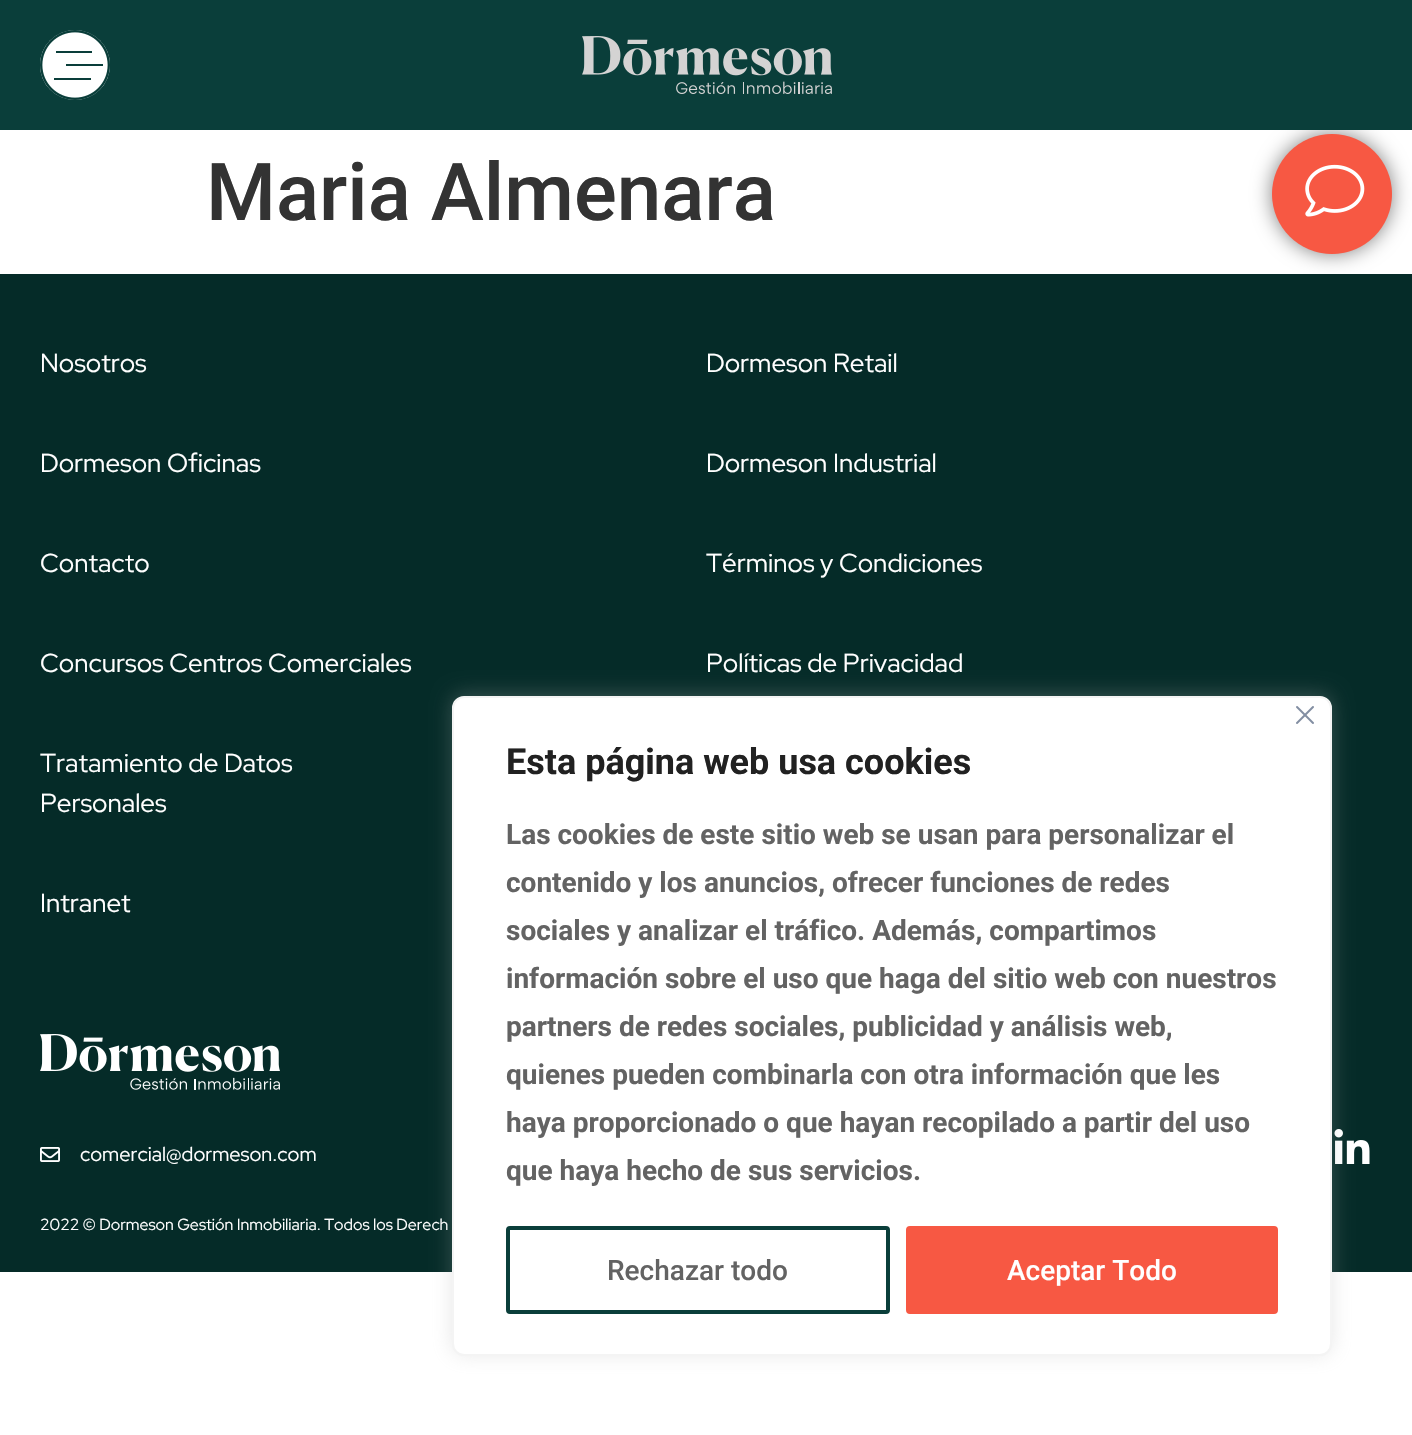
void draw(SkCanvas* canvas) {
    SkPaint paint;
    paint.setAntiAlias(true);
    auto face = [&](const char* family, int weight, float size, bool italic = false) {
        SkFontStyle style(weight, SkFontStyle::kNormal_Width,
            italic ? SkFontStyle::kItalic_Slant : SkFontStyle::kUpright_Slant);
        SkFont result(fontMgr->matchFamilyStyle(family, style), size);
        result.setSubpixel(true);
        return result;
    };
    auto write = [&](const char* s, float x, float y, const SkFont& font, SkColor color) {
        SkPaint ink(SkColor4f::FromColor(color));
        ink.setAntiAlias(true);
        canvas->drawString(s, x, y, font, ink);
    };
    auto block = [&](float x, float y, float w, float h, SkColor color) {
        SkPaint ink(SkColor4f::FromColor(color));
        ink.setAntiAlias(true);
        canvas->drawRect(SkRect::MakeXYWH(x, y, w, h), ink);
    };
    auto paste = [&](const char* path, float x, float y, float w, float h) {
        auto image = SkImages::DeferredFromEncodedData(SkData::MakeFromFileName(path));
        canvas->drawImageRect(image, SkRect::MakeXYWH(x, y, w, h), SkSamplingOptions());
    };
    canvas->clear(SK_ColorWHITE);
    block(0, 274, 1412, 998, SkColorSetRGB(5, 43, 40));
    paint.setColor(SkColorSetARGB(128, 0, 0, 0));
    paint.setMaskFilter(SkMaskFilter::MakeBlur(kNormal_SkBlurStyle, 10));
    canvas->drawRoundRect(SkRect::MakeXYWH(1272, 134, 120, 120), 60, 60, paint);
    paint.setMaskFilter(nullptr);
    block(0, 0, 1412, 130, SkColorSetRGB(10, 62, 58));
    paint.setColor(SK_ColorWHITE);
    canvas->drawCircle(75, 65, 35, paint);
    paste("pic1.png", 40, 30, 70, 70);
    paste("pic2.png", 582, 36, 250, 58);
    auto kFont1 = face("Roboto", 500, 80);
    write("Maria Almenara", 206, 220, kFont1, SkColorSetRGB(51, 51, 51));
    paste("pic3.png", 1272, 134, 120, 120);
    auto kFont2 = face("Red Hat Display", 400, 26);
    write("Nosotros", 40, 372, kFont2, SK_ColorWHITE);
    write("Dormeson Retail", 706, 372, kFont2, SK_ColorWHITE);
    write("Dormeson Oficinas", 40, 472, kFont2, SK_ColorWHITE);
    write("Dormeson Industrial", 706, 472, kFont2, SK_ColorWHITE);
    write("Contacto", 40, 572, kFont2, SK_ColorWHITE);
    write("Términos y Condiciones", 706, 572, kFont2, SK_ColorWHITE);
    write("Concursos Centros Comerciales", 40, 672, kFont2, SK_ColorWHITE);
    write("Políticas de Privacidad", 706, 672, kFont2, SK_ColorWHITE);
    write("Tratamiento de Datos", 40, 772, kFont2, SK_ColorWHITE);
    write("Personales", 40, 812, kFont2, SK_ColorWHITE);
    write("Intranet", 40, 912, kFont2, SK_ColorWHITE);
    paste("pic4.png", 40, 1034, 240, 56);
    paste("pic5.png", 40, 1147, 20, 15);
    auto kFont3 = face("Red Hat Display", 400, 20);
    write("comercial@dormeson.com", 80, 1161, kFont3, SK_ColorWHITE);
    paste("pic6.png", 1334, 1129, 36, 35);
    auto kFont4 = face("Red Hat Display", 400, 16);
    write("2022 © Dormeson Gestión Inmobiliaria. Todos los Derech", 40, 1230, kFont4, SK_ColorWHITE);
    paint.setColor(SkColorSetARGB(77, 172, 171, 171));
    paint.setMaskFilter(SkMaskFilter::MakeBlur(kNormal_SkBlurStyle, 10));
    canvas->drawRoundRect(SkRect::MakeXYWH(452, 694, 880, 660), 12, 12, paint);
    paint.setMaskFilter(nullptr);
    paint.setColor(SK_ColorWHITE);
    canvas->drawRoundRect(SkRect::MakeXYWH(453, 697, 878, 658), 11, 11, paint);
    paint.setStyle(SkPaint::kStroke_Style);
    paint.setStrokeWidth(2);
    paint.setColor(SkColorSetRGB(244, 244, 244));
    canvas->drawRoundRect(SkRect::MakeXYWH(453, 697, 878, 658), 11, 11, paint);
    paste("pic7.png", 1296, 706, 18, 18);
    auto kFont5 = face("Roboto", 700, 36);
    write("Esta página web usa cookies", 506, 774, kFont5, SkColorSetRGB(33, 33, 33));
    auto kFont6 = face("Roboto", 700, 28);
    write("Las cookies de este sitio web se usan para personalizar el", 506, 844, kFont6, SkColorSetRGB(99, 99, 99));
    write("contenido y los anuncios, ofrecer funciones de redes", 506, 892, kFont6, SkColorSetRGB(99, 99, 99));
    write("sociales y analizar el tráfico. Además, compartimos", 506, 940, kFont6, SkColorSetRGB(99, 99, 99));
    write("información sobre el uso que haga del sitio web con nuestros", 506, 988, kFont6, SkColorSetRGB(99, 99, 99));
    write("partners de redes sociales, publicidad y análisis web,", 506, 1036, kFont6, SkColorSetRGB(99, 99, 99));
    write("quienes pueden combinarla con otra información que les", 506, 1084, kFont6, SkColorSetRGB(99, 99, 99));
    write("haya proporcionado o que hayan recopilado a partir del uso", 506, 1132, kFont6, SkColorSetRGB(99, 99, 99));
    write("que haya hecho de sus servicios.", 506, 1180, kFont6, SkColorSetRGB(99, 99, 99));
    paint.setStrokeWidth(4);
    paint.setColor(SkColorSetRGB(10, 62, 58));
    canvas->drawRoundRect(SkRect::MakeXYWH(508, 1228, 380, 84), 2, 2, paint);
    auto kFont7 = face("Roboto", 500, 28);
    write("Rechazar todo", 607, 1280, kFont7, SkColorSetRGB(99, 99, 99));
    paint.setStyle(SkPaint::kFill_Style);
    paint.setColor(SkColorSetRGB(247, 88, 67));
    canvas->drawRoundRect(SkRect::MakeXYWH(908, 1228, 368, 84), 2, 2, paint);
    paint.setStyle(SkPaint::kStroke_Style);
    canvas->drawRoundRect(SkRect::MakeXYWH(908, 1228, 368, 84), 2, 2, paint);
    write("Aceptar Todo", 1007, 1280, kFont7, SK_ColorWHITE);
}
